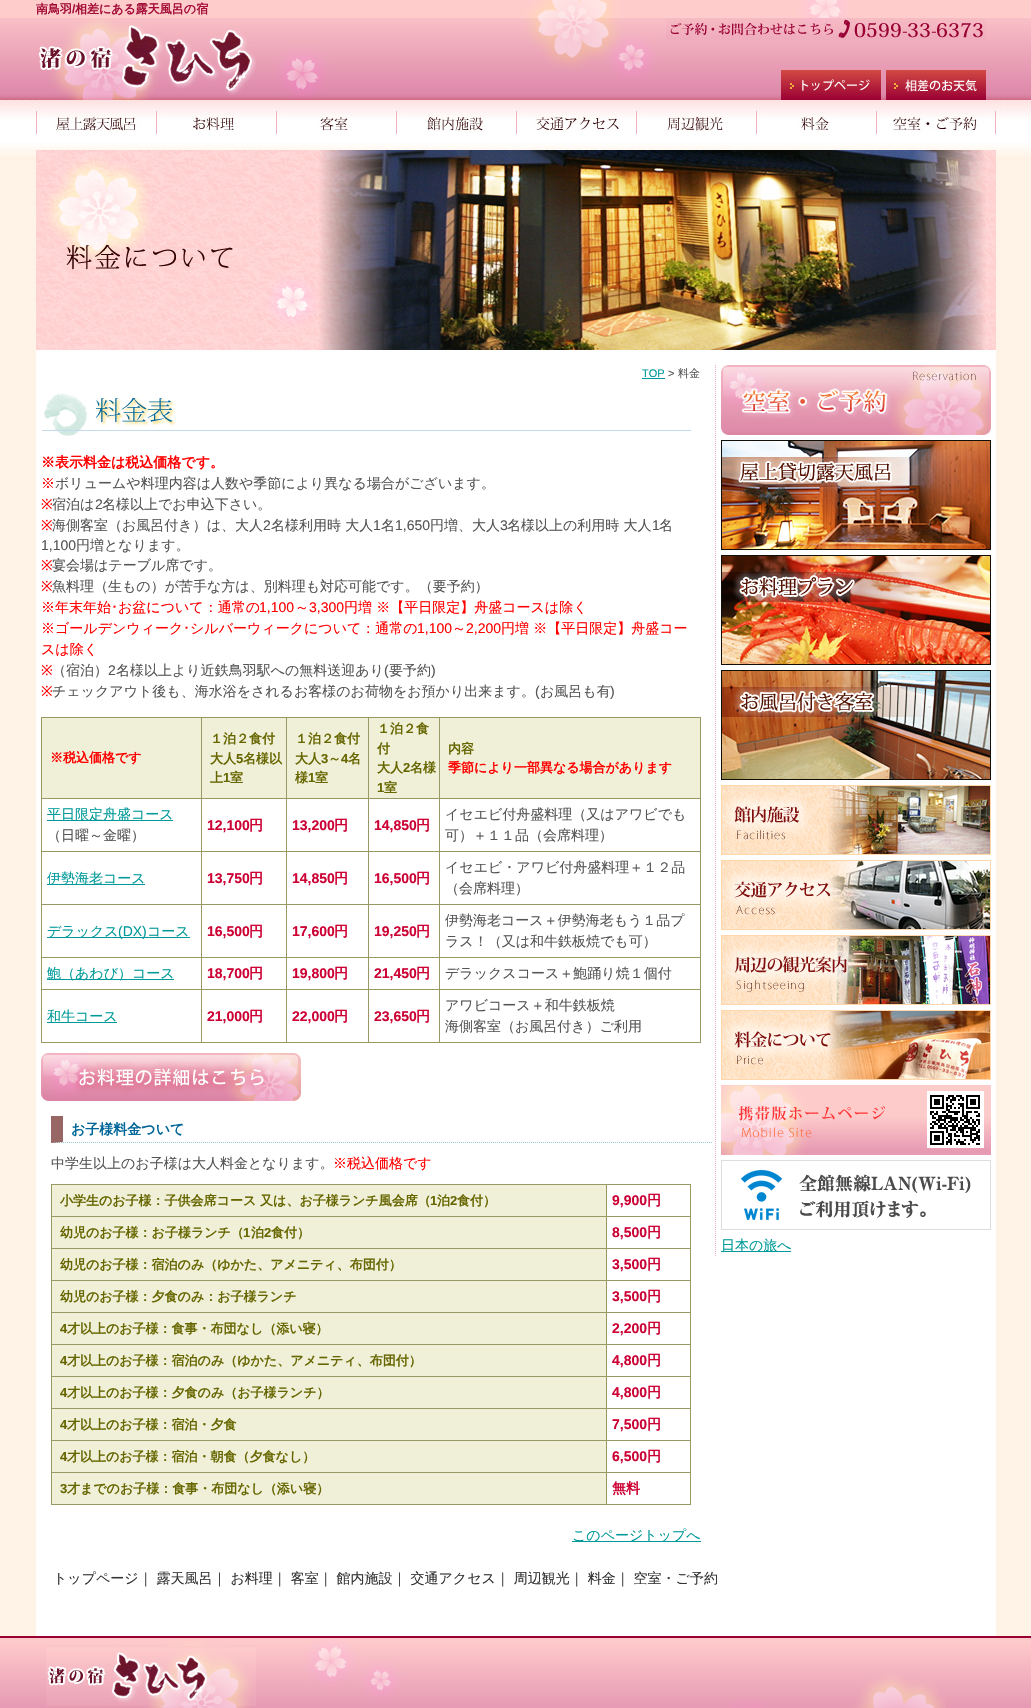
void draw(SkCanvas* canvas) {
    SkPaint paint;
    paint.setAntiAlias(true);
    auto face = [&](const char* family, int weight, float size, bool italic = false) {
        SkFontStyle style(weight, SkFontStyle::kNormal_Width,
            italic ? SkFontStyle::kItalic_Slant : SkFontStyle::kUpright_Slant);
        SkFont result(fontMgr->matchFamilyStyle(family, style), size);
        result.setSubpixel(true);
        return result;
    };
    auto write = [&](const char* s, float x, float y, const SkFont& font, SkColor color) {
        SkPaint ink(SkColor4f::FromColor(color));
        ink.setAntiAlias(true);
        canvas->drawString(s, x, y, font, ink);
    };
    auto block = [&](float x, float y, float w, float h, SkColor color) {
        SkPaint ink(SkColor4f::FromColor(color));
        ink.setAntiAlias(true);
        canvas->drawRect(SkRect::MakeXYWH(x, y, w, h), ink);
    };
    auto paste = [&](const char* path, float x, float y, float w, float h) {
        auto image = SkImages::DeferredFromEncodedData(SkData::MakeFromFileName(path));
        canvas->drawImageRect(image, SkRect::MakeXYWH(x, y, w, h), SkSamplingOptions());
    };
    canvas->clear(SkColorSetRGB(255, 243, 231));
    paste("pic1.png", 0, 0, 1031, 160);
    paste("pic2.png", 51, 0, 798, 100);
    auto kFont1 = face("WenQuanYi Zen Hei", 700, 12);
    write("南鳥羽", 36, 13, kFont1, SkColorSetRGB(163, 12, 55));
    auto kFont2 = face("Liberation Sans", 700, 12);
    write("/", 72, 13, kFont2, SkColorSetRGB(163, 12, 55));
    write("相差にある露天風呂の宿", 75, 13, kFont1, SkColorSetRGB(163, 12, 55));
    paste("pic3.png", 38, 25, 218, 75);
    paste("pic4.png", 666, 18, 320, 22);
    paste("pic5.png", 781, 70, 100, 30);
    paste("pic6.png", 886, 70, 100, 30);
    paste("pic7.png", 36, 100, 120, 38);
    paste("pic8.png", 156, 100, 120, 38);
    paste("pic9.png", 276, 100, 120, 38);
    paste("pic10.png", 396, 100, 120, 38);
    paste("pic11.png", 516, 100, 120, 38);
    paste("pic12.png", 636, 100, 119, 38);
    paste("pic13.png", 756, 100, 120, 38);
    paste("pic14.png", 876, 100, 120, 38);
    paste("pic15.png", 36, 150, 960, 200);
    block(36, 350, 960, 1286, SK_ColorWHITE);
    auto kFont3 = face("Liberation Sans", 400, 11);
    write("TOP", 642, 377, kFont3, SkColorSetRGB(0, 153, 153));
    block(642, 378, 23, 1, SkColorSetRGB(0, 153, 153));
    write(">", 668, 377, kFont3, SkColorSetRGB(85, 85, 85));
    auto kFont4 = face("WenQuanYi Zen Hei", 500, 11);
    write("料金", 678, 377, kFont4, SkColorSetRGB(85, 85, 85));
    paste("pic16.png", 42, 393, 649, 43);
    auto kFont5 = face("WenQuanYi Zen Hei", 700, 14);
    write("※表示料金は税込価格です。", 41, 467, kFont5, SkColorSetRGB(255, 0, 0));
    auto kFont6 = face("WenQuanYi Zen Hei", 500, 14);
    write("※", 41, 488, kFont6, SkColorSetRGB(255, 0, 0));
    write("ボリュームや料理内容は人数や季節により異なる場合がございます。", 55, 488, kFont6, SkColorSetRGB(85, 85, 85));
    auto kFont7 = face("Noto Sans", 400, 14);
    write("※", 41, 509, kFont7, SkColorSetRGB(255, 0, 0));
    write("宿泊は", 52, 509, kFont6, SkColorSetRGB(85, 85, 85));
    auto kFont8 = face("Liberation Sans", 400, 14);
    write("2", 95, 509, kFont8, SkColorSetRGB(85, 85, 85));
    write("名様以上でお申込下さい。", 102, 509, kFont6, SkColorSetRGB(85, 85, 85));
    write("※", 41, 530, kFont7, SkColorSetRGB(255, 0, 0));
    write("海側客室（お風呂付き）は、大人", 52, 530, kFont6, SkColorSetRGB(85, 85, 85));
    write("2", 263, 530, kFont8, SkColorSetRGB(85, 85, 85));
    write("名様利用時 大人", 271, 530, kFont6, SkColorSetRGB(85, 85, 85));
    write("1", 373, 530, kFont8, SkColorSetRGB(85, 85, 85));
    write("名", 381, 530, kFont6, SkColorSetRGB(85, 85, 85));
    write("1,650", 395, 530, kFont8, SkColorSetRGB(85, 85, 85));
    write("円増、大人", 430, 530, kFont6, SkColorSetRGB(85, 85, 85));
    write("3", 500, 530, kFont8, SkColorSetRGB(85, 85, 85));
    write("名様以上の利用時 大人", 507, 530, kFont6, SkColorSetRGB(85, 85, 85));
    write("1", 652, 530, kFont8, SkColorSetRGB(85, 85, 85));
    write("名", 659, 530, kFont6, SkColorSetRGB(85, 85, 85));
    write("1,100", 41, 550, kFont8, SkColorSetRGB(85, 85, 85));
    write("円増となります。", 76, 550, kFont6, SkColorSetRGB(85, 85, 85));
    write("※", 41, 570, kFont7, SkColorSetRGB(255, 0, 0));
    write("宴会場はテーブル席です。", 52, 570, kFont6, SkColorSetRGB(85, 85, 85));
    write("※", 41, 591, kFont7, SkColorSetRGB(255, 0, 0));
    write("魚料理（生もの）が苦手な方は、別料理も対応可能です。（要予約）", 52, 591, kFont6, SkColorSetRGB(85, 85, 85));
    write("※年末年始", 41, 612, kFont6, SkColorSetRGB(255, 0, 0));
    auto kFont9 = face("IPAGothic", 400, 14);
    write("･", 111, 612, kFont9, SkColorSetRGB(255, 0, 0));
    write("お盆について：通常の", 118, 612, kFont6, SkColorSetRGB(255, 0, 0));
    write("1,100", 259, 612, kFont8, SkColorSetRGB(255, 0, 0));
    write("～", 295, 612, kFont6, SkColorSetRGB(255, 0, 0));
    write("3,300", 309, 612, kFont8, SkColorSetRGB(255, 0, 0));
    write("円増 ※【平日限定】舟盛コースは除く", 344, 612, kFont6, SkColorSetRGB(255, 0, 0));
    write("※ゴールデンウィーク", 41, 633, kFont6, SkColorSetRGB(255, 0, 0));
    write("･", 183, 633, kFont9, SkColorSetRGB(255, 0, 0));
    write("シルバーウィークについて：通常の", 190, 633, kFont6, SkColorSetRGB(255, 0, 0));
    write("1,100", 417, 633, kFont8, SkColorSetRGB(255, 0, 0));
    write("～", 452, 633, kFont6, SkColorSetRGB(255, 0, 0));
    write("2,200", 466, 633, kFont8, SkColorSetRGB(255, 0, 0));
    write("円増 ※【平日限定】舟盛コー", 501, 633, kFont6, SkColorSetRGB(255, 0, 0));
    write("スは除く", 41, 654, kFont6, SkColorSetRGB(255, 0, 0));
    write("※", 41, 675, kFont7, SkColorSetRGB(255, 0, 0));
    write("（宿泊）", 52, 675, kFont6, SkColorSetRGB(85, 85, 85));
    write("2", 108, 675, kFont8, SkColorSetRGB(85, 85, 85));
    write("名様以上より近鉄鳥羽駅への無料送迎あり", 116, 675, kFont6, SkColorSetRGB(85, 85, 85));
    write("(", 384, 675, kFont8, SkColorSetRGB(85, 85, 85));
    write("要予約", 389, 675, kFont6, SkColorSetRGB(85, 85, 85));
    write(")", 431, 675, kFont8, SkColorSetRGB(85, 85, 85));
    write("※", 41, 696, kFont7, SkColorSetRGB(255, 0, 0));
    write("チェックアウト後も、海水浴をされるお客様のお荷物をお預かり出来ます。", 52, 696, kFont6, SkColorSetRGB(85, 85, 85));
    write("(", 535, 696, kFont8, SkColorSetRGB(85, 85, 85));
    write("お風呂も有", 540, 696, kFont6, SkColorSetRGB(85, 85, 85));
    write(")", 610, 696, kFont8, SkColorSetRGB(85, 85, 85));
    block(41, 717, 660, 326, SkColorSetRGB(153, 153, 102));
    block(42, 718, 159, 80, SkColorSetRGB(240, 239, 215));
    auto kFont10 = face("WenQuanYi Zen Hei", 700, 13);
    write("※税込価格です", 50, 762, kFont10, SkColorSetRGB(255, 0, 0));
    block(202, 718, 84, 80, SkColorSetRGB(240, 239, 215));
    write("１泊２食付", 210, 743, kFont10, SkColorSetRGB(102, 102, 0));
    write("大人", 210, 763, kFont10, SkColorSetRGB(102, 102, 0));
    auto kFont11 = face("Liberation Sans", 700, 13);
    write("5", 236, 763, kFont11, SkColorSetRGB(102, 102, 0));
    write("名様以", 243, 763, kFont10, SkColorSetRGB(102, 102, 0));
    write("上", 210, 782, kFont10, SkColorSetRGB(102, 102, 0));
    write("1", 223, 782, kFont11, SkColorSetRGB(102, 102, 0));
    write("室", 230, 782, kFont10, SkColorSetRGB(102, 102, 0));
    block(287, 718, 81, 80, SkColorSetRGB(240, 239, 215));
    write("１泊２食付", 295, 743, kFont10, SkColorSetRGB(102, 102, 0));
    write("大人", 295, 763, kFont10, SkColorSetRGB(102, 102, 0));
    write("3", 321, 763, kFont11, SkColorSetRGB(102, 102, 0));
    write("～", 328, 763, kFont10, SkColorSetRGB(102, 102, 0));
    write("4", 341, 763, kFont11, SkColorSetRGB(102, 102, 0));
    write("名", 348, 763, kFont10, SkColorSetRGB(102, 102, 0));
    write("様", 295, 782, kFont10, SkColorSetRGB(102, 102, 0));
    write("1", 308, 782, kFont11, SkColorSetRGB(102, 102, 0));
    write("室", 315, 782, kFont10, SkColorSetRGB(102, 102, 0));
    block(369, 718, 70, 80, SkColorSetRGB(240, 239, 215));
    write("１泊２食", 377, 733, kFont10, SkColorSetRGB(102, 102, 0));
    write("付", 377, 753, kFont10, SkColorSetRGB(102, 102, 0));
    write("大人", 377, 772, kFont10, SkColorSetRGB(102, 102, 0));
    write("2", 403, 772, kFont11, SkColorSetRGB(102, 102, 0));
    write("名様", 410, 772, kFont10, SkColorSetRGB(102, 102, 0));
    write("1", 377, 792, kFont11, SkColorSetRGB(102, 102, 0));
    write("室", 384, 792, kFont10, SkColorSetRGB(102, 102, 0));
    block(440, 718, 260, 80, SkColorSetRGB(240, 239, 215));
    write("内容", 448, 753, kFont10, SkColorSetRGB(102, 102, 0));
    write("季節により一部異なる場合があります", 448, 772, kFont10, SkColorSetRGB(255, 0, 0));
    block(42, 799, 159, 52, SK_ColorWHITE);
    block(47, 820, 126, 1, SkColorSetRGB(0, 153, 153));
    write("平日限定舟盛コース", 47, 819, kFont6, SkColorSetRGB(0, 153, 153));
    write("（日曜～金曜）", 47, 840, kFont6, SkColorSetRGB(85, 85, 85));
    block(202, 799, 84, 52, SK_ColorWHITE);
    auto kFont12 = face("Liberation Sans", 700, 14);
    write("12,100", 207, 830, kFont12, SkColorSetRGB(204, 0, 51));
    write("円", 249, 830, kFont5, SkColorSetRGB(204, 0, 51));
    block(287, 799, 81, 52, SK_ColorWHITE);
    write("13,200", 292, 830, kFont12, SkColorSetRGB(204, 0, 51));
    write("円", 334, 830, kFont5, SkColorSetRGB(204, 0, 51));
    block(369, 799, 70, 52, SK_ColorWHITE);
    write("14,850", 374, 830, kFont12, SkColorSetRGB(204, 0, 51));
    write("円", 416, 830, kFont5, SkColorSetRGB(204, 0, 51));
    block(440, 799, 260, 52, SK_ColorWHITE);
    write("イセエビ付舟盛料理（又はアワビでも", 445, 819, kFont6, SkColorSetRGB(85, 85, 85));
    write("可）＋１１品（会席料理）", 445, 840, kFont6, SkColorSetRGB(85, 85, 85));
    block(42, 852, 159, 52, SK_ColorWHITE);
    block(47, 884, 98, 1, SkColorSetRGB(0, 153, 153));
    write("伊勢海老コース", 47, 883, kFont6, SkColorSetRGB(0, 153, 153));
    block(202, 852, 84, 52, SK_ColorWHITE);
    write("13,750", 207, 883, kFont12, SkColorSetRGB(204, 0, 51));
    write("円", 249, 883, kFont5, SkColorSetRGB(204, 0, 51));
    block(287, 852, 81, 52, SK_ColorWHITE);
    write("14,850", 292, 883, kFont12, SkColorSetRGB(204, 0, 51));
    write("円", 334, 883, kFont5, SkColorSetRGB(204, 0, 51));
    block(369, 852, 70, 52, SK_ColorWHITE);
    write("16,500", 374, 883, kFont12, SkColorSetRGB(204, 0, 51));
    write("円", 416, 883, kFont5, SkColorSetRGB(204, 0, 51));
    block(440, 852, 260, 52, SK_ColorWHITE);
    write("イセエビ・アワビ付舟盛料理＋１２品", 445, 872, kFont6, SkColorSetRGB(85, 85, 85));
    write("（会席料理）", 445, 893, kFont6, SkColorSetRGB(85, 85, 85));
    block(42, 905, 159, 52, SK_ColorWHITE);
    block(47, 937, 143, 1, SkColorSetRGB(0, 153, 153));
    write("デラックス", 47, 936, kFont6, SkColorSetRGB(0, 153, 153));
    write("(DX)", 118, 936, kFont8, SkColorSetRGB(0, 153, 153));
    write("コース", 147, 936, kFont6, SkColorSetRGB(0, 153, 153));
    block(202, 905, 84, 52, SK_ColorWHITE);
    write("16,500", 207, 936, kFont12, SkColorSetRGB(204, 0, 51));
    write("円", 249, 936, kFont5, SkColorSetRGB(204, 0, 51));
    block(287, 905, 81, 52, SK_ColorWHITE);
    write("17,600", 292, 936, kFont12, SkColorSetRGB(204, 0, 51));
    write("円", 334, 936, kFont5, SkColorSetRGB(204, 0, 51));
    block(369, 905, 70, 52, SK_ColorWHITE);
    write("19,250", 374, 936, kFont12, SkColorSetRGB(204, 0, 51));
    write("円", 416, 936, kFont5, SkColorSetRGB(204, 0, 51));
    block(440, 905, 260, 52, SK_ColorWHITE);
    write("伊勢海老コース＋伊勢海老もう１品プ", 445, 925, kFont6, SkColorSetRGB(85, 85, 85));
    write("ラス！（又は和牛鉄板焼でも可）", 445, 946, kFont6, SkColorSetRGB(85, 85, 85));
    block(42, 958, 159, 31, SK_ColorWHITE);
    block(47, 979, 127, 1, SkColorSetRGB(0, 153, 153));
    write("鮑（あわび）コース", 47, 978, kFont6, SkColorSetRGB(0, 153, 153));
    block(202, 958, 84, 31, SK_ColorWHITE);
    write("18,700", 207, 978, kFont12, SkColorSetRGB(204, 0, 51));
    write("円", 249, 978, kFont5, SkColorSetRGB(204, 0, 51));
    block(287, 958, 81, 31, SK_ColorWHITE);
    write("19,800", 292, 978, kFont12, SkColorSetRGB(204, 0, 51));
    write("円", 334, 978, kFont5, SkColorSetRGB(204, 0, 51));
    block(369, 958, 70, 31, SK_ColorWHITE);
    write("21,450", 374, 978, kFont12, SkColorSetRGB(204, 0, 51));
    write("円", 416, 978, kFont5, SkColorSetRGB(204, 0, 51));
    block(440, 958, 260, 31, SK_ColorWHITE);
    write("デラックスコース＋鮑踊り焼１個付", 445, 978, kFont6, SkColorSetRGB(85, 85, 85));
    block(42, 990, 159, 52, SK_ColorWHITE);
    block(47, 1022, 70, 1, SkColorSetRGB(0, 153, 153));
    write("和牛コース", 47, 1021, kFont6, SkColorSetRGB(0, 153, 153));
    block(202, 990, 84, 52, SK_ColorWHITE);
    write("21,000", 207, 1021, kFont12, SkColorSetRGB(204, 0, 51));
    write("円", 249, 1021, kFont5, SkColorSetRGB(204, 0, 51));
    block(287, 990, 81, 52, SK_ColorWHITE);
    write("22,000", 292, 1021, kFont12, SkColorSetRGB(204, 0, 51));
    write("円", 334, 1021, kFont5, SkColorSetRGB(204, 0, 51));
    block(369, 990, 70, 52, SK_ColorWHITE);
    write("23,650", 374, 1021, kFont12, SkColorSetRGB(204, 0, 51));
    write("円", 416, 1021, kFont5, SkColorSetRGB(204, 0, 51));
    block(440, 990, 260, 52, SK_ColorWHITE);
    write("アワビコース＋和牛鉄板焼", 445, 1010, kFont6, SkColorSetRGB(85, 85, 85));
    write("海側客室（お風呂付き）ご利用", 445, 1031, kFont6, SkColorSetRGB(85, 85, 85));
    paste("pic17.png", 41, 1053, 260, 48);
    paint.setStyle(SkPaint::kStroke_Style);
    paint.setStrokeWidth(1);
    paint.setColor(SkColorSetRGB(153, 204, 204));
    paint.setPathEffect(SkDashPathEffect::Make({{1, 1}}, 0));
    canvas->drawPath(SkPathBuilder().moveTo(51, 1142.5f).lineTo(713, 1142.5f).detach(), paint);
    paint.setPathEffect(nullptr);
    paint.setStyle(SkPaint::kFill_Style);
    paint.setColor(SkColorSetRGB(153, 102, 102));
    canvas->drawPath(SkPathBuilder().moveTo(51, 1143).lineTo(51, 1116).lineTo(63, 1116).lineTo(63, 1142).close().detach(), paint);
    write("お子様料金ついて", 71, 1134, kFont5, SkColorSetRGB(0, 102, 153));
    write("中学生以上のお子様は大人料金となります。", 51, 1168, kFont6, SkColorSetRGB(85, 85, 85));
    write("※税込価格です", 333, 1168, kFont6, SkColorSetRGB(255, 0, 0));
    block(51, 1184, 640, 321, SkColorSetRGB(153, 153, 102));
    block(52, 1185, 554, 31, SkColorSetRGB(240, 239, 215));
    write("小学生のお子様：子供会席コース 又は、お子様ランチ風会席（", 60, 1205, kFont10, SkColorSetRGB(102, 102, 0));
    write("1", 430, 1205, kFont11, SkColorSetRGB(102, 102, 0));
    write("泊", 437, 1205, kFont10, SkColorSetRGB(102, 102, 0));
    write("2", 450, 1205, kFont11, SkColorSetRGB(102, 102, 0));
    write("食付）", 457, 1205, kFont10, SkColorSetRGB(102, 102, 0));
    block(607, 1185, 83, 31, SK_ColorWHITE);
    write("9,900", 612, 1205, kFont12, SkColorSetRGB(204, 0, 51));
    write("円", 647, 1205, kFont5, SkColorSetRGB(204, 0, 51));
    block(52, 1217, 554, 31, SkColorSetRGB(240, 239, 215));
    write("幼児のお子様：お子様ランチ（", 60, 1237, kFont10, SkColorSetRGB(102, 102, 0));
    write("1", 243, 1237, kFont11, SkColorSetRGB(102, 102, 0));
    write("泊", 251, 1237, kFont10, SkColorSetRGB(102, 102, 0));
    write("2", 264, 1237, kFont11, SkColorSetRGB(102, 102, 0));
    write("食付）", 271, 1237, kFont10, SkColorSetRGB(102, 102, 0));
    block(607, 1217, 83, 31, SK_ColorWHITE);
    write("8,500", 612, 1237, kFont12, SkColorSetRGB(204, 0, 51));
    write("円", 647, 1237, kFont5, SkColorSetRGB(204, 0, 51));
    block(52, 1249, 554, 31, SkColorSetRGB(240, 239, 215));
    write("幼児のお子様：宿泊のみ（ゆかた、アメニティ、布団付）", 60, 1269, kFont10, SkColorSetRGB(102, 102, 0));
    block(607, 1249, 83, 31, SK_ColorWHITE);
    write("3,500", 612, 1269, kFont12, SkColorSetRGB(204, 0, 51));
    write("円", 647, 1269, kFont5, SkColorSetRGB(204, 0, 51));
    block(52, 1281, 554, 31, SkColorSetRGB(240, 239, 215));
    write("幼児のお子様：夕食のみ：お子様ランチ", 60, 1301, kFont10, SkColorSetRGB(102, 102, 0));
    block(607, 1281, 83, 31, SK_ColorWHITE);
    write("3,500", 612, 1301, kFont12, SkColorSetRGB(204, 0, 51));
    write("円", 647, 1301, kFont5, SkColorSetRGB(204, 0, 51));
    block(52, 1313, 554, 31, SkColorSetRGB(240, 239, 215));
    write("4", 60, 1333, kFont11, SkColorSetRGB(102, 102, 0));
    write("才以上のお子様：食事・布団なし（添い寝）", 67, 1333, kFont10, SkColorSetRGB(102, 102, 0));
    block(607, 1313, 83, 31, SK_ColorWHITE);
    write("2,200", 612, 1333, kFont12, SkColorSetRGB(204, 0, 51));
    write("円", 647, 1333, kFont5, SkColorSetRGB(204, 0, 51));
    block(52, 1345, 554, 31, SkColorSetRGB(240, 239, 215));
    write("4", 60, 1365, kFont11, SkColorSetRGB(102, 102, 0));
    write("才以上のお子様：宿泊のみ（ゆかた、アメニティ、布団付）", 67, 1365, kFont10, SkColorSetRGB(102, 102, 0));
    block(607, 1345, 83, 31, SK_ColorWHITE);
    write("4,800", 612, 1365, kFont12, SkColorSetRGB(204, 0, 51));
    write("円", 647, 1365, kFont5, SkColorSetRGB(204, 0, 51));
    block(52, 1377, 554, 31, SkColorSetRGB(240, 239, 215));
    write("4", 60, 1397, kFont11, SkColorSetRGB(102, 102, 0));
    write("才以上のお子様：夕食のみ（お子様ランチ）", 67, 1397, kFont10, SkColorSetRGB(102, 102, 0));
    block(607, 1377, 83, 31, SK_ColorWHITE);
    write("4,800", 612, 1397, kFont12, SkColorSetRGB(204, 0, 51));
    write("円", 647, 1397, kFont5, SkColorSetRGB(204, 0, 51));
    block(52, 1409, 554, 31, SkColorSetRGB(240, 239, 215));
    write("4", 60, 1429, kFont11, SkColorSetRGB(102, 102, 0));
    write("才以上のお子様：宿泊・夕食", 67, 1429, kFont10, SkColorSetRGB(102, 102, 0));
    block(607, 1409, 83, 31, SK_ColorWHITE);
    write("7,500", 612, 1429, kFont12, SkColorSetRGB(204, 0, 51));
    write("円", 647, 1429, kFont5, SkColorSetRGB(204, 0, 51));
    block(52, 1441, 554, 31, SkColorSetRGB(240, 239, 215));
    write("4", 60, 1461, kFont11, SkColorSetRGB(102, 102, 0));
    write("才以上のお子様：宿泊・朝食（夕食なし）", 67, 1461, kFont10, SkColorSetRGB(102, 102, 0));
    block(607, 1441, 83, 31, SK_ColorWHITE);
    write("6,500", 612, 1461, kFont12, SkColorSetRGB(204, 0, 51));
    write("円", 647, 1461, kFont5, SkColorSetRGB(204, 0, 51));
    block(52, 1473, 554, 31, SkColorSetRGB(240, 239, 215));
    write("3", 60, 1493, kFont11, SkColorSetRGB(102, 102, 0));
    write("才までのお子様：食事・布団なし（添い寝）", 67, 1493, kFont10, SkColorSetRGB(102, 102, 0));
    block(607, 1473, 83, 31, SK_ColorWHITE);
    write("無料", 612, 1493, kFont5, SkColorSetRGB(204, 0, 51));
    block(572, 1541, 129, 1, SkColorSetRGB(0, 153, 153));
    write("このページトップへ", 572, 1540, kFont6, SkColorSetRGB(0, 153, 153));
    paint.setStyle(SkPaint::kStroke_Style);
    paint.setColor(SkColorSetRGB(242, 179, 190));
    paint.setPathEffect(SkDashPathEffect::Make({{1, 1}}, 0));
    canvas->drawPath(SkPathBuilder().moveTo(715.5f, 365).lineTo(715.5f, 1256).detach(), paint);
    paint.setPathEffect(nullptr);
    paste("pic18.png", 721, 365, 270, 70);
    paste("pic19.png", 721, 440, 270, 110);
    paste("pic20.png", 721, 555, 270, 110);
    paste("pic21.png", 721, 670, 270, 110);
    paste("pic22.png", 721, 785, 270, 70);
    paste("pic23.png", 721, 860, 270, 70);
    paste("pic24.png", 721, 935, 270, 70);
    paste("pic25.png", 721, 1010, 270, 70);
    paste("pic26.png", 721, 1085, 270, 70);
    paste("pic27.png", 721, 1160, 270, 70);
    block(721, 1251, 70, 1, SkColorSetRGB(0, 153, 153));
    write("日本の旅へ", 721, 1250, kFont6, SkColorSetRGB(0, 153, 153));
    write("トップページ｜ 露天風呂｜ お料理｜ 客室｜ 館内施設｜ 交通アクセス｜ 周辺観光｜ 料金｜ 空室・ご予約", 53, 1583, kFont6, SkColorSetRGB(51, 51, 51));
    paste("pic28.png", 0, 1636, 1031, 72);
    paste("pic29.png", 145, 1638, 801, 70);
    paste("pic30.png", 46, 1646, 210, 60);
}
